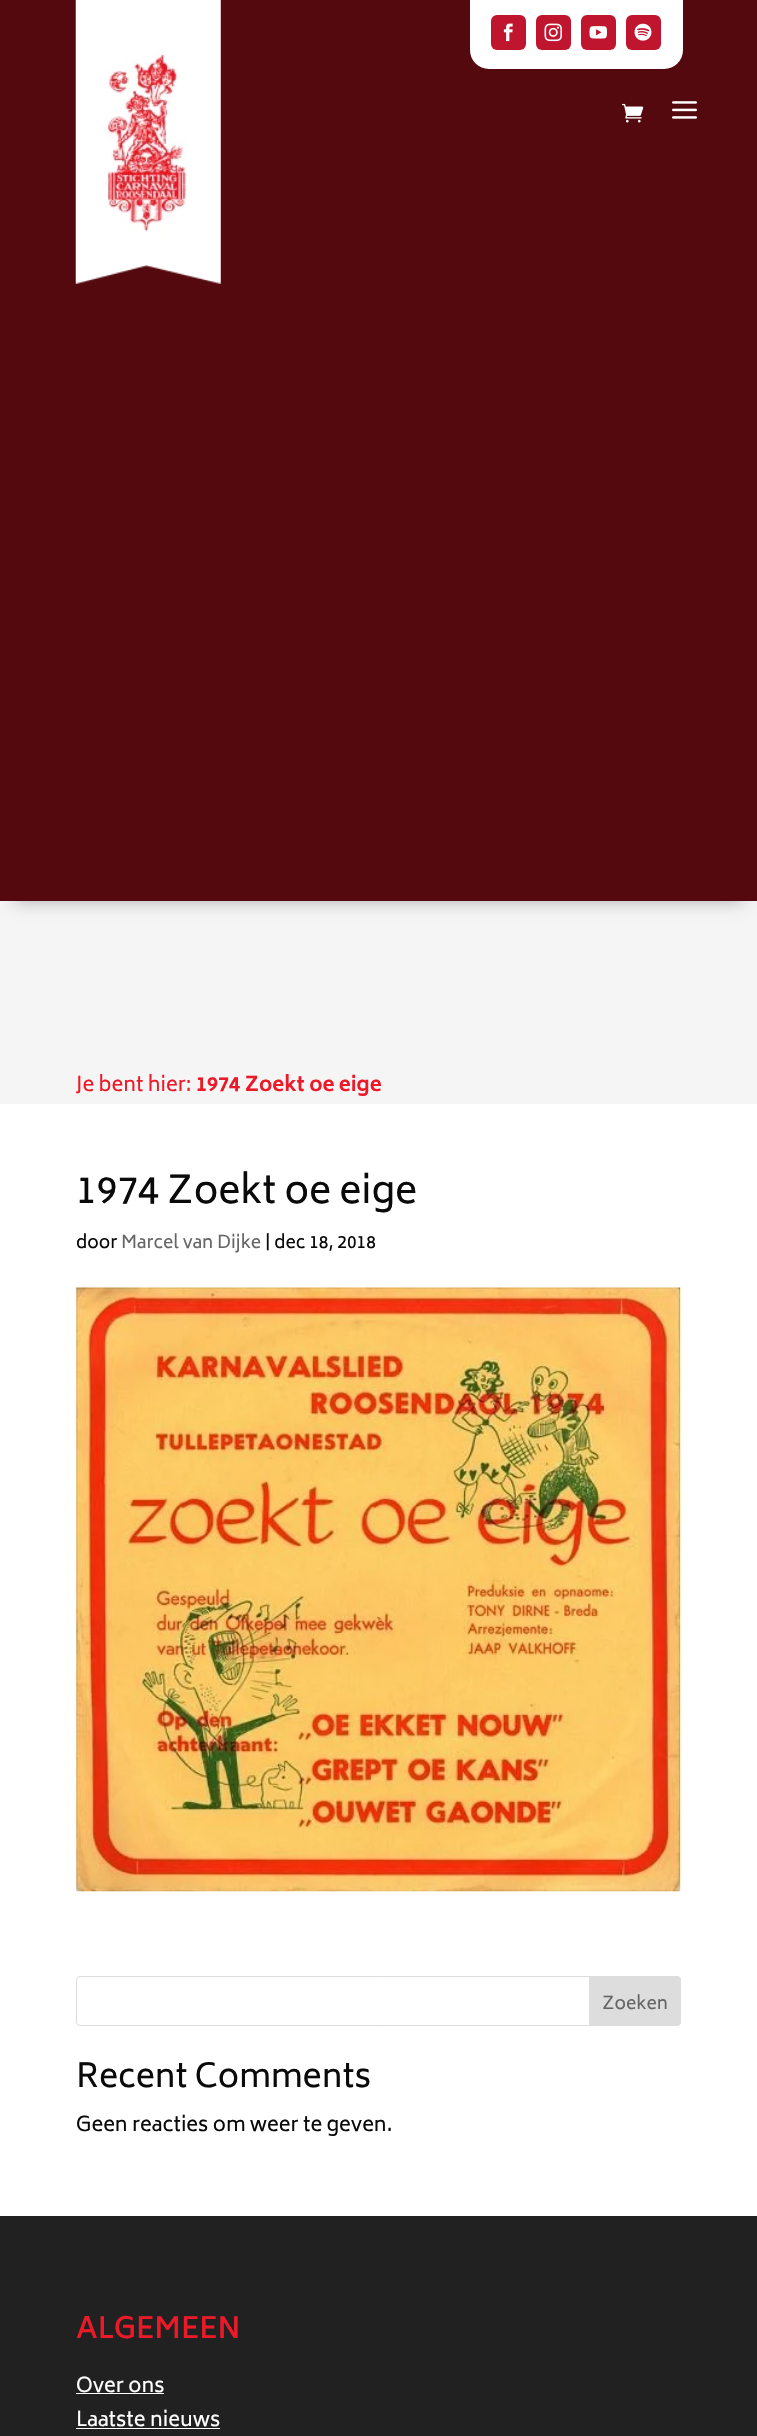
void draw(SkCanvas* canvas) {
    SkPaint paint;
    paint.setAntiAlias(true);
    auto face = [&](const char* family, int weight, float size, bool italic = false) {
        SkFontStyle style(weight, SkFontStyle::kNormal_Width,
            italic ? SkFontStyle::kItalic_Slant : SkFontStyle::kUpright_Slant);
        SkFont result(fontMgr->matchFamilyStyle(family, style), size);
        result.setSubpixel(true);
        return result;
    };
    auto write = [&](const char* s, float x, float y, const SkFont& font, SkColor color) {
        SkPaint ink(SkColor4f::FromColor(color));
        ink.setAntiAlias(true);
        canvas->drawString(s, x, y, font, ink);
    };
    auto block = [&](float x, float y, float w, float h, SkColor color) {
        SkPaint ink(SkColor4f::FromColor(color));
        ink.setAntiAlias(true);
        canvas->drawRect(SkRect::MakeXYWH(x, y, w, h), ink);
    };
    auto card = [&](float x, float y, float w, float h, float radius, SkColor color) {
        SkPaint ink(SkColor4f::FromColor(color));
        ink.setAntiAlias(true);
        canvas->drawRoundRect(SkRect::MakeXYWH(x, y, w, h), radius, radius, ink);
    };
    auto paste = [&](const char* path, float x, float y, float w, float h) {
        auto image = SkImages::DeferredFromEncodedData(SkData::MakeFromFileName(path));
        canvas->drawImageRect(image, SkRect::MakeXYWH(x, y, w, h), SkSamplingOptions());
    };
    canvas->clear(SK_ColorWHITE);
    block(0, 901, 757, 203, SkColorSetRGB(245, 245, 245));
    paint.setColor(SkColorSetARGB(77, 0, 0, 0));
    paint.setMaskFilter(SkMaskFilter::MakeBlur(kNormal_SkBlurStyle, 8));
    canvas->drawRect(SkRect::MakeXYWH(15, 30, 728, 871), paint);
    paint.setMaskFilter(nullptr);
    block(0, 0, 757, 901, SkColorSetRGB(83, 9, 14));
    paste("pic1.png", 75, 0, 146, 284);
    paint.setColor(SK_ColorWHITE);
    canvas->drawPath(SkPathBuilder().moveTo(470, 0).lineTo(683, 0).lineTo(683, 50).cubicTo(683, 60.5f, 674.5f, 69, 664, 69).lineTo(489, 69).cubicTo(478.5f, 69, 470, 60.5f, 470, 50).close().detach(), paint);
    card(491, 15, 35, 35, 6, SkColorSetRGB(191, 21, 46));
    paste("pic2.png", 503, 23, 10, 19);
    card(536, 15, 35, 35, 6, SkColorSetRGB(191, 21, 46));
    paste("pic3.png", 544, 23, 18, 19);
    card(581, 15, 35, 35, 6, SkColorSetRGB(191, 21, 46));
    paste("pic4.png", 589, 26, 18, 13);
    card(626, 15, 35, 35, 6, SkColorSetRGB(191, 21, 46));
    paste("pic5.png", 634, 23, 18, 18);
    paste("pic6.png", 622, 103, 22, 20);
    paste("pic7.png", 672, 101, 25, 18);
    auto kFont1 = face("Biryani", 400, 20);
    write("Je bent hier:", 76, 1091, kFont1, SkColorSetRGB(236, 26, 41));
    auto kFont2 = face("Biryani", 700, 20);
    write("1974 Zoekt oe eige", 196, 1091, kFont2, SkColorSetRGB(236, 26, 41));
    auto kFont3 = face("Biryani", 400, 37.5f);
    write("1974 Zoekt oe eige", 76, 1203, kFont3, SkColorSetRGB(10, 10, 10));
    auto kFont4 = face("Biryani", 400, 17.5f);
    write("door", 76, 1248, kFont4, SkColorSetRGB(10, 10, 10));
    write("Marcel van Dijke", 121, 1248, kFont4, SkColorSetRGB(102, 102, 102));
    write("| dec 18, 2018", 265, 1248, kFont4, SkColorSetRGB(10, 10, 10));
    paste("pic8.png", 76, 1287, 606, 605);
    paint.setStyle(SkPaint::kStroke_Style);
    paint.setStrokeWidth(1);
    paint.setColor(SkColorSetRGB(221, 221, 221));
    canvas->drawRoundRect(SkRect::MakeXYWH(76.5f, 1976.5f, 604, 49), 3.5f, 3.5f, paint);
    paint.setStyle(SkPaint::kFill_Style);
    canvas->drawPath(SkPathBuilder().moveTo(589.5f, 1976.5f).lineTo(677, 1976.5f).cubicTo(679, 1976.5f, 680.5f, 1978, 680.5f, 1980).lineTo(680.5f, 2022).cubicTo(680.5f, 2024, 679, 2025.5f, 677, 2025.5f).lineTo(589.5f, 2025.5f).close().detach(), paint);
    paint.setStyle(SkPaint::kStroke_Style);
    canvas->drawPath(SkPathBuilder().moveTo(589.5f, 1976.5f).lineTo(677, 1976.5f).cubicTo(679, 1976.5f, 680.5f, 1978, 680.5f, 1980).lineTo(680.5f, 2022).cubicTo(680.5f, 2024, 679, 2025.5f, 677, 2025.5f).lineTo(589.5f, 2025.5f).close().detach(), paint);
    write("Zoeken", 602, 2009, kFont4, SkColorSetRGB(102, 102, 102));
    auto kFont5 = face("Biryani", 400, 32.5f);
    write("Recent Comments", 76, 2087, kFont5, SkColorSetRGB(10, 10, 10));
    write("Geen reacties om weer te geven.", 76, 2131, kFont1, SkColorSetRGB(10, 10, 10));
    block(0, 2216, 757, 220, SkColorSetRGB(33, 33, 33));
    auto kFont6 = face("Biryani", 600, 28.75f);
    write("ALGEMEEN", 76, 2338, kFont6, SkColorSetRGB(236, 26, 41));
    write("Over ons", 76, 2392, kFont1, SK_ColorWHITE);
    block(76, 2393, 88, 1, SK_ColorWHITE);
    write("Laatste nieuws", 76, 2426, kFont1, SK_ColorWHITE);
    block(76, 2428, 144, 1, SK_ColorWHITE);
}
